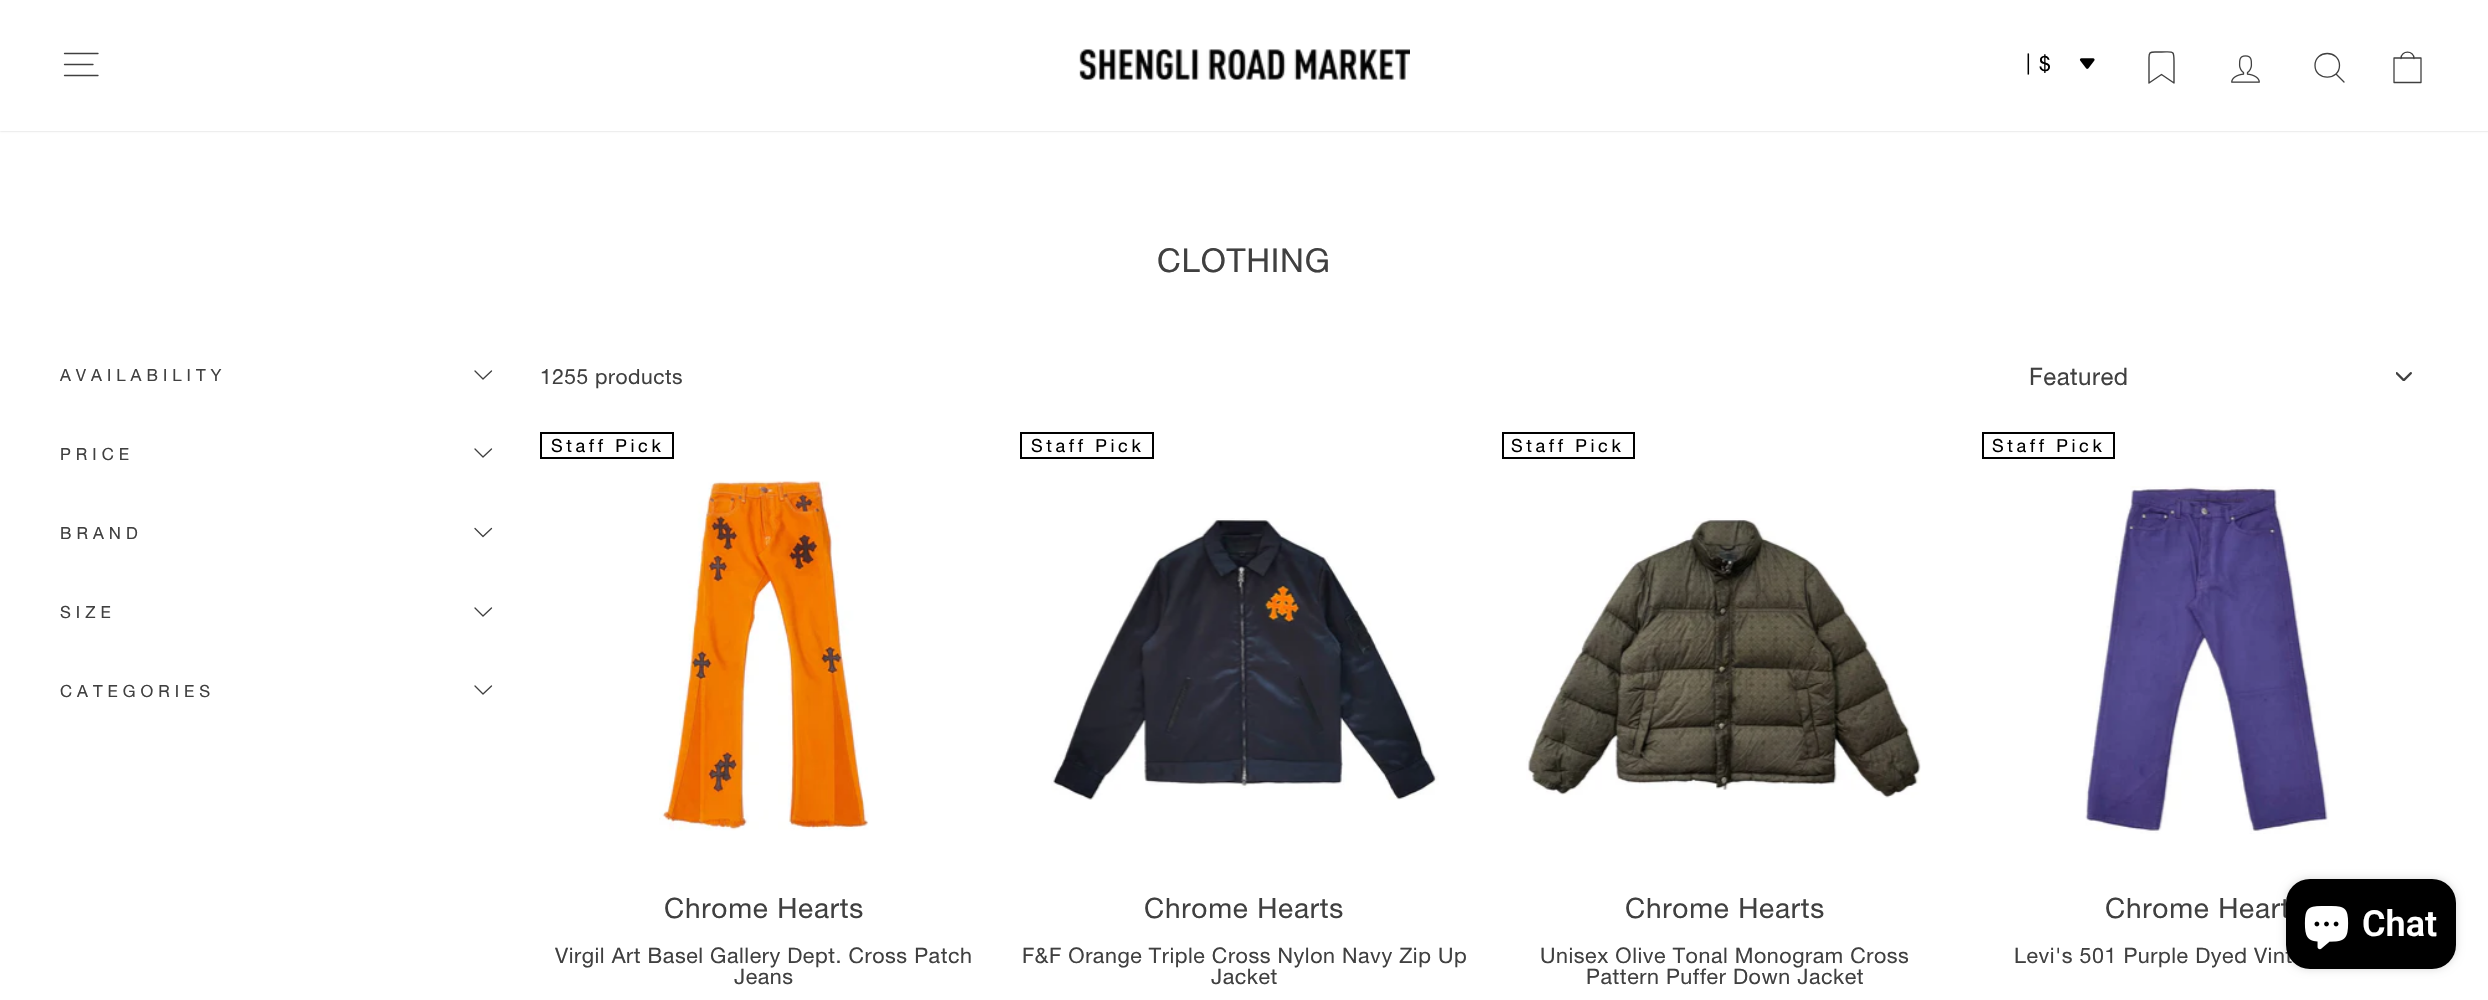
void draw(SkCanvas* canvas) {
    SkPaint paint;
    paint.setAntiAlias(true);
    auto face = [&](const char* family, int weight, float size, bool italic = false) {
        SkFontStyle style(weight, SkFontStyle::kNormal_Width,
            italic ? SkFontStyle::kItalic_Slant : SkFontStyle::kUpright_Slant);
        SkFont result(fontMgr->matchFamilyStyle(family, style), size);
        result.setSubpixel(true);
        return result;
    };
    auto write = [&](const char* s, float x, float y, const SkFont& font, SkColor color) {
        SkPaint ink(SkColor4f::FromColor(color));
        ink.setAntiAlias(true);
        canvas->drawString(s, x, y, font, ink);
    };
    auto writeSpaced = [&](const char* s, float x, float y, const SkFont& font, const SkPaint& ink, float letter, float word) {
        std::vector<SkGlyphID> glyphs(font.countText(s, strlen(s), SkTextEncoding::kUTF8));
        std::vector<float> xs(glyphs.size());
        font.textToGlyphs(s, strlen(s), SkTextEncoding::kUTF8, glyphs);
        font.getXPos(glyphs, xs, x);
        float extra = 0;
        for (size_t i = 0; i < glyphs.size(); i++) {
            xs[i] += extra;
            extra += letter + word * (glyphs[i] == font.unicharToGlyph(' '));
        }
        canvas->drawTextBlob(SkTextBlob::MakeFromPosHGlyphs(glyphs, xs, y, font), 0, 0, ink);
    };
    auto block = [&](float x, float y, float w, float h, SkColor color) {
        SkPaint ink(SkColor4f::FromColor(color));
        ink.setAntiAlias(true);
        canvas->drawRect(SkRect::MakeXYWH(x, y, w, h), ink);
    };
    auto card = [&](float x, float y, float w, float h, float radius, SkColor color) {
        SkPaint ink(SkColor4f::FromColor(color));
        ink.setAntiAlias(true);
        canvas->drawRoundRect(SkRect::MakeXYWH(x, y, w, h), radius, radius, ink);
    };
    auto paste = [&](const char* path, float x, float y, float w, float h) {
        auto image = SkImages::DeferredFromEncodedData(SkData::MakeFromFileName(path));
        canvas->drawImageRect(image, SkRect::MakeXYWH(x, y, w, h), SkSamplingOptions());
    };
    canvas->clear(SK_ColorWHITE);
    paint.setColor(SkColorSetARGB(51, 0, 0, 0));
    paint.setMaskFilter(SkMaskFilter::MakeBlur(kNormal_SkBlurStyle, 1));
    canvas->drawRect(SkRect::MakeXYWH(0, 0, 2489, 131), paint);
    paint.setMaskFilter(nullptr);
    block(0, 0, 2488, 131, SK_ColorWHITE);
    paint.setStyle(SkPaint::kStroke_Style);
    paint.setStrokeWidth(1.3f);
    paint.setStrokeCap(SkPaint::kRound_Cap);
    paint.setStrokeJoin(SkPaint::kRound_Join);
    paint.setColor(SkColorSetRGB(64, 64, 64));
    canvas->drawPath(SkPathBuilder().moveTo(64.5f, 53.5f).lineTo(98, 53.5f).moveTo(64.5f, 64.5f).lineTo(93, 64.5f).moveTo(64.5f, 75.5f).lineTo(98, 75.5f).detach(), paint);
    paste("pic1.png", 1079, 49, 331, 31);
    auto kFont1 = face("Helvetica Neue", 400, 21);
    paint.setStyle(SkPaint::kFill_Style);
    paint.setColor(SK_ColorBLACK);
    writeSpaced("|", 2026, 70, kFont1, paint, 0.5f, 0);
    writeSpaced("$", 2039, 71, kFont1, paint, 0.5f, 0);
    paste("pic2.png", 2079, 58, 16, 11);
    paint.setStyle(SkPaint::kStroke_Style);
    paint.setStrokeWidth(1.4f);
    paint.setColor(SkColorSetRGB(64, 64, 64));
    canvas->drawPath(SkPathBuilder().moveTo(2149, 57.5f).cubicTo(2149, 52.5f, 2150, 52, 2155, 52).lineTo(2161.5f, 52).cubicTo(2173.5f, 52, 2174, 50, 2174, 61.5f).lineTo(2174, 83).lineTo(2161.5f, 74.5f).lineTo(2149, 83).close().detach(), paint);
    paste("pic3.png", 2231, 55, 29, 28);
    paint.setStrokeWidth(1.3f);
    canvas->drawPath(SkPathBuilder().moveTo(2339.5f, 65.5f).cubicTo(2339.5f, 81, 2315, 81, 2315, 65.5f).cubicTo(2315, 49.5f, 2339.5f, 49.5f, 2339.5f, 65.5f).close().moveTo(2344, 82).lineTo(2336, 74).detach(), paint);
    canvas->drawPath(SkPathBuilder().moveTo(2394, 58).lineTo(2421, 58).lineTo(2421, 82.5f).lineTo(2394, 82.5f).close().moveTo(2401, 58.5f).cubicTo(2401, 50, 2414, 50, 2414, 58.5f).detach(), paint);
    auto kFont2 = face("Helvetica Neue", 400, 33);
    paint.setStyle(SkPaint::kFill_Style);
    writeSpaced("CLOTHING", 1157, 272, kFont2, paint, 0.75f, 0);
    auto kFont3 = face("Helvetica Neue", 400, 16.75f);
    writeSpaced("AVAILABILITY", 60, 381, kFont3, paint, 5, 0);
    paint.setStyle(SkPaint::kStroke_Style);
    canvas->drawPath(SkPathBuilder().moveTo(475, 371).lineTo(483, 379).lineTo(491.5f, 371).detach(), paint);
    paint.setStyle(SkPaint::kFill_Style);
    writeSpaced("PRICE", 60, 460, kFont3, paint, 5, 0);
    paint.setStyle(SkPaint::kStroke_Style);
    canvas->drawPath(SkPathBuilder().moveTo(475, 449).lineTo(483, 457).lineTo(491.5f, 449).detach(), paint);
    paint.setStyle(SkPaint::kFill_Style);
    writeSpaced("BRAND", 60, 539, kFont3, paint, 5, 0);
    paint.setStyle(SkPaint::kStroke_Style);
    canvas->drawPath(SkPathBuilder().moveTo(475, 528.5f).lineTo(483, 536.5f).lineTo(491.5f, 528.5f).detach(), paint);
    paint.setStyle(SkPaint::kFill_Style);
    writeSpaced("SIZE", 60, 618, kFont3, paint, 5, 0);
    paint.setStyle(SkPaint::kStroke_Style);
    canvas->drawPath(SkPathBuilder().moveTo(475, 608).lineTo(483, 616).lineTo(491.5f, 608).detach(), paint);
    paint.setStyle(SkPaint::kFill_Style);
    writeSpaced("CATEGORIES", 60, 697, kFont3, paint, 5, 0);
    paint.setStyle(SkPaint::kStroke_Style);
    canvas->drawPath(SkPathBuilder().moveTo(475, 686).lineTo(483, 694).lineTo(491.5f, 686).detach(), paint);
    paint.setStyle(SkPaint::kFill_Style);
    writeSpaced("1255 products", 540, 384, kFont1, paint, 0.5f, 0);
    paste("pic4.png", 2396, 372, 16, 9);
    auto kFont4 = face("Helvetica Neue", 400, 24);
    writeSpaced("Featured", 2029, 385, kFont4, paint, 0.5f, 0);
    paint.setStyle(SkPaint::kStroke_Style);
    paint.setStrokeWidth(2);
    paint.setStrokeCap(SkPaint::kButt_Cap);
    paint.setStrokeJoin(SkPaint::kMiter_Join);
    paint.setColor(SK_ColorBLACK);
    canvas->drawRect(SkRect::MakeXYWH(541, 433, 132, 25), paint);
    auto kFont5 = face("Helvetica Neue", 400, 18);
    paint.setStyle(SkPaint::kFill_Style);
    writeSpaced("Staff Pick", 551, 452, kFont5, paint, 3.6f, 0);
    paste("pic5.png", 659, 480, 210, 351);
    auto kFont6 = face("Helvetica Neue", 400, 28);
    paint.setColor(SkColorSetRGB(64, 64, 64));
    writeSpaced("Chrome Hearts", 664, 918, kFont6, paint, 0.75f, 0);
    auto kFont7 = face("Helvetica Neue", 400, 21.45f);
    writeSpaced("Virgil Art Basel Gallery Dept. Cross Patch", 555, 963, kFont7, paint, 0.55f, 0);
    writeSpaced("Jeans", 734, 984, kFont7, paint, 0.55f, 0);
    paint.setStyle(SkPaint::kStroke_Style);
    paint.setColor(SK_ColorBLACK);
    canvas->drawRect(SkRect::MakeXYWH(1021, 433, 132, 25), paint);
    paint.setStyle(SkPaint::kFill_Style);
    writeSpaced("Staff Pick", 1031, 452, kFont5, paint, 3.6f, 0);
    paste("pic6.png", 1051, 518, 388, 282);
    paint.setColor(SkColorSetRGB(64, 64, 64));
    writeSpaced("Chrome Hearts", 1144, 918, kFont6, paint, 0.75f, 0);
    writeSpaced("F&F Orange Triple Cross Nylon Navy Zip Up", 1022, 963, kFont7, paint, 0.55f, 0);
    writeSpaced("Jacket", 1211, 984, kFont7, paint, 0.55f, 0);
    paint.setStyle(SkPaint::kStroke_Style);
    paint.setColor(SK_ColorBLACK);
    canvas->drawRect(SkRect::MakeXYWH(1503, 433, 131, 25), paint);
    paint.setStyle(SkPaint::kFill_Style);
    writeSpaced("Staff Pick", 1511, 452, kFont5, paint, 3.6f, 0);
    paste("pic7.png", 1526, 518, 395, 280);
    paint.setColor(SkColorSetRGB(64, 64, 64));
    writeSpaced("Chrome Hearts", 1625, 918, kFont6, paint, 0.75f, 0);
    writeSpaced("Unisex Olive Tonal Monogram Cross", 1540, 963, kFont7, paint, 0.55f, 0);
    writeSpaced("Pattern Puffer Down Jacket", 1586, 984, kFont7, paint, 0.55f, 0);
    paint.setStyle(SkPaint::kStroke_Style);
    paint.setColor(SK_ColorBLACK);
    canvas->drawRect(SkRect::MakeXYWH(1983, 433, 131, 25), paint);
    paint.setStyle(SkPaint::kFill_Style);
    writeSpaced("Staff Pick", 1992, 452, kFont5, paint, 3.6f, 0);
    paste("pic8.png", 2085, 486, 244, 348);
    paint.setColor(SkColorSetRGB(64, 64, 64));
    writeSpaced("Chrome Heart", 2105, 918, kFont6, paint, 0.75f, 0);
    writeSpaced("Levi's 501 Purple Dyed Vint", 2014, 963, kFont7, paint, 0.55f, 0);
    paint.setColor(SkColorSetARGB(38, 0, 0, 0));
    paint.setMaskFilter(SkMaskFilter::MakeBlur(kNormal_SkBlurStyle, 4));
    canvas->drawRoundRect(SkRect::MakeXYWH(2286, 879, 170, 90), 24, 24, paint);
    paint.setMaskFilter(nullptr);
    card(2286, 879, 170, 90, 24, SK_ColorBLACK);
    paste("pic9.png", 2304, 906, 45, 44);
    auto kFont8 = face("Roboto", 600, 36);
    write("Chat", 2362, 936, kFont8, SK_ColorWHITE);
}
